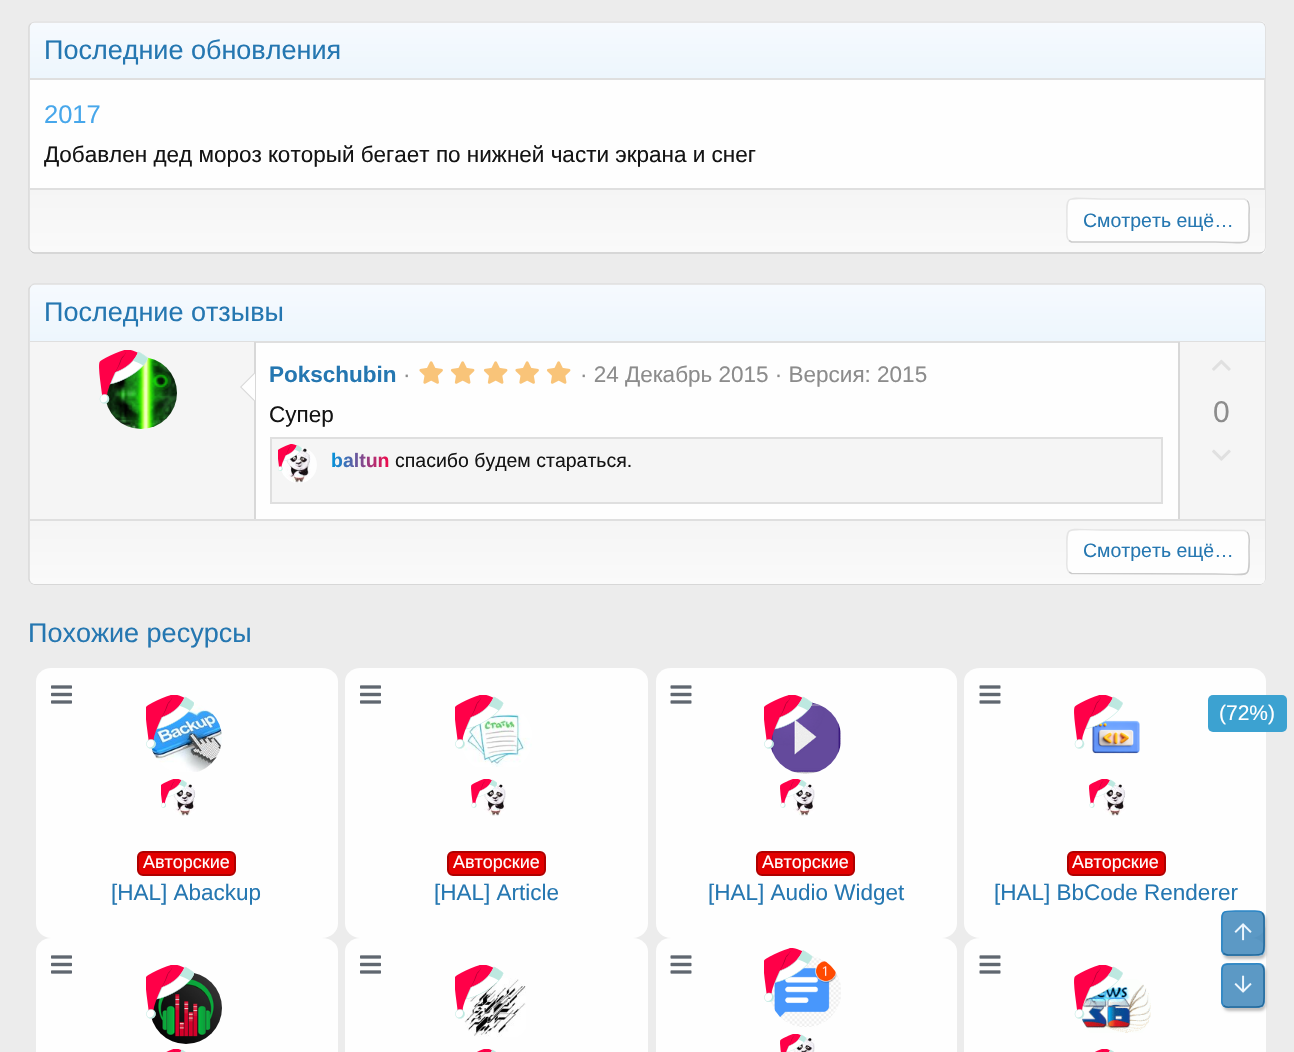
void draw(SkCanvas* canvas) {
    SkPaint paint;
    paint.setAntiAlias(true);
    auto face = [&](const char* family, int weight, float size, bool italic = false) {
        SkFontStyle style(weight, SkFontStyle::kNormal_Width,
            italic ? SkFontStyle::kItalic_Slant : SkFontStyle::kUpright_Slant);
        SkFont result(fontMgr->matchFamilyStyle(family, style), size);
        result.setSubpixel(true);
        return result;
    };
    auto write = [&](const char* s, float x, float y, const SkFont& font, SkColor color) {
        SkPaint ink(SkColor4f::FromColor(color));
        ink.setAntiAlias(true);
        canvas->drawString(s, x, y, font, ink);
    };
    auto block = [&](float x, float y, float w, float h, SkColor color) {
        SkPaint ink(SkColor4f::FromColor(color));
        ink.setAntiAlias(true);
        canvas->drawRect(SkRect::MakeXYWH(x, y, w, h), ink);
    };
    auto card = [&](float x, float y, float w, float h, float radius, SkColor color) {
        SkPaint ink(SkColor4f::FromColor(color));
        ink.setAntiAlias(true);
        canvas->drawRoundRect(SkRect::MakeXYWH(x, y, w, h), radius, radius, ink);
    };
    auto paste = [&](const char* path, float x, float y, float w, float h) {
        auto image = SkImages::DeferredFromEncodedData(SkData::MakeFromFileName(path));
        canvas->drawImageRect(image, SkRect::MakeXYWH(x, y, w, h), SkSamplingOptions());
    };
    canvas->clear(SkColorSetRGB(236, 236, 236));
    card(29, 21, 1237, 233, 6, SkColorSetRGB(254, 254, 254));
    paint.setStyle(SkPaint::kStroke_Style);
    paint.setStrokeWidth(1.5f);
    paint.setColor(SkColorSetRGB(223, 223, 223));
    canvas->drawPath(SkPathBuilder().moveTo(31, 23.5f).cubicTo(32, 22.5f, 33, 22, 34.5f, 22).lineTo(1260, 22).cubicTo(1261.5f, 22, 1262.5f, 22.5f, 1263.5f, 23.5f).detach(), paint);
    paint.setColor(SkColorSetRGB(216, 216, 216));
    canvas->drawPath(SkPathBuilder().moveTo(1263.5f, 23.5f).cubicTo(1264.5f, 24.5f, 1265, 25.5f, 1265, 27).lineTo(1265, 247.5f).cubicTo(1265, 249, 1264.5f, 250, 1263.5f, 251).detach(), paint);
    paint.setColor(SkColorSetRGB(203, 203, 203));
    canvas->drawPath(SkPathBuilder().moveTo(1263.5f, 251).cubicTo(1262.5f, 252, 1261.5f, 253, 1260, 253).lineTo(34.5f, 253).cubicTo(33, 253, 32, 252, 31, 251).detach(), paint);
    paint.setColor(SkColorSetRGB(216, 216, 216));
    canvas->drawPath(SkPathBuilder().moveTo(31, 251).cubicTo(30, 250, 29, 249, 29, 247.5f).lineTo(29, 27).cubicTo(29, 25.5f, 30, 24.5f, 31, 23.5f).detach(), paint);
    paint.setStyle(SkPaint::kFill_Style);
    {
        const SkColor colors[] = {SkColorSetRGB(237, 246, 253), SkColorSetRGB(246, 250, 254)};
        const float stops[] = {0, 1};
        const SkPoint ends[] = {{647, 78}, {647, 23}};
        paint.setShader(SkGradientShader::MakeLinear(ends, colors, stops, 2, SkTileMode::kClamp));
        paint.setAlpha(255);
    }
    canvas->drawPath(SkPathBuilder().moveTo(35, 23).lineTo(1260, 23).cubicTo(1263, 23, 1265, 25, 1265, 28).lineTo(1265, 78).lineTo(30, 78).lineTo(30, 28).cubicTo(30, 25, 32, 23, 35, 23).close().detach(), paint);
    block(30, 78, 1235, 2, SkColorSetRGB(223, 223, 223));
    auto kFont1 = face("Liberation Sans", 400, 27);
    write("Последние обновления", 44, 59, kFont1, SkColorSetRGB(37, 119, 177));
    auto kFont2 = face("Liberation Sans", 400, 25.5f);
    write("2017", 44, 123, kFont2, SkColorSetRGB(71, 167, 235));
    auto kFont3 = face("Liberation Sans", 400, 22.5f);
    write("Добавлен дед мороз который бегает по нижней части экрана и снег", 44, 162, kFont3, SkColorSetRGB(20, 20, 20));
    {
        const SkColor colors[] = {SkColorSetRGB(245, 245, 245), SkColorSetRGB(250, 250, 250)};
        const float stops[] = {0, 1};
        const SkPoint ends[] = {{647, 189}, {647, 252}};
        paint.setShader(SkGradientShader::MakeLinear(ends, colors, stops, 2, SkTileMode::kClamp));
        paint.setAlpha(255);
    }
    canvas->drawPath(SkPathBuilder().moveTo(30, 189).lineTo(1265, 189).lineTo(1265, 247).cubicTo(1265, 250, 1263, 252, 1260, 252).lineTo(35, 252).cubicTo(32, 252, 30, 250, 30, 247).close().detach(), paint);
    block(30, 188, 1235, 2, SkColorSetRGB(223, 223, 223));
    card(1067, 198, 183, 45, 6, SkColorSetRGB(254, 254, 254));
    paint.setStyle(SkPaint::kStroke_Style);
    paint.setShader(nullptr);
    paint.setColor(SkColorSetRGB(203, 203, 203));
    canvas->drawPath(SkPathBuilder().moveTo(1247, 200.5f).cubicTo(1250.5f, 203.5f, 1249, 211.5f, 1249, 215).cubicTo(1249, 249.5f, 1253.5f, 242, 1215, 242).lineTo(1071.5f, 242).lineTo(1069, 240.5f).detach(), paint);
    paint.setColor(SkColorSetRGB(229, 229, 229));
    canvas->drawPath(SkPathBuilder().moveTo(1069, 240.5f).cubicTo(1065.5f, 237.5f, 1067, 229.5f, 1067, 226).cubicTo(1067, 191.5f, 1062.5f, 199, 1101, 199).lineTo(1244.5f, 199).lineTo(1247, 200.5f).detach(), paint);
    auto kFont4 = face("Liberation Sans", 400, 19.5f);
    write("Смотреть ещё…", 1083, 227, kFont4, SkColorSetRGB(37, 119, 177));
    card(29, 284, 1237, 301, 6, SkColorSetRGB(254, 254, 254));
    paint.setColor(SkColorSetRGB(223, 223, 223));
    canvas->drawPath(SkPathBuilder().moveTo(31, 286).cubicTo(32, 285, 33, 284, 34.5f, 284).lineTo(1260, 284).cubicTo(1261.5f, 284, 1262.5f, 285, 1263.5f, 286).detach(), paint);
    paint.setColor(SkColorSetRGB(216, 216, 216));
    canvas->drawPath(SkPathBuilder().moveTo(1263.5f, 286).cubicTo(1264.5f, 287, 1265, 288, 1265, 289.5f).lineTo(1265, 579).cubicTo(1265, 580.5f, 1264.5f, 581.5f, 1263.5f, 582.5f).detach(), paint);
    paint.setColor(SkColorSetRGB(203, 203, 203));
    canvas->drawPath(SkPathBuilder().moveTo(1263.5f, 582.5f).cubicTo(1262.5f, 583.5f, 1261.5f, 584, 1260, 584).lineTo(34.5f, 584).cubicTo(33, 584, 32, 583.5f, 31, 582.5f).detach(), paint);
    paint.setColor(SkColorSetRGB(216, 216, 216));
    canvas->drawPath(SkPathBuilder().moveTo(31, 582.5f).cubicTo(30, 581.5f, 29, 580.5f, 29, 579).lineTo(29, 289.5f).cubicTo(29, 288, 30, 287, 31, 286).detach(), paint);
    paint.setStyle(SkPaint::kFill_Style);
    {
        const SkColor colors[] = {SkColorSetRGB(237, 246, 253), SkColorSetRGB(246, 250, 254)};
        const float stops[] = {0, 1};
        const SkPoint ends[] = {{647, 341}, {647, 285}};
        paint.setShader(SkGradientShader::MakeLinear(ends, colors, stops, 2, SkTileMode::kClamp));
        paint.setAlpha(255);
    }
    canvas->drawPath(SkPathBuilder().moveTo(35, 285).lineTo(1260, 285).cubicTo(1263, 285, 1265, 287, 1265, 290).lineTo(1265, 341).lineTo(30, 341).lineTo(30, 290).cubicTo(30, 287, 32, 285, 35, 285).close().detach(), paint);
    block(30, 341, 1235, 2, SkColorSetRGB(223, 223, 223));
    write("Последние отзывы", 44, 321, kFont1, SkColorSetRGB(37, 119, 177));
    block(30, 342, 224, 177, SkColorSetRGB(245, 245, 245));
    block(254, 342, 2, 177, SkColorSetRGB(216, 216, 216));
    paint.setShader(nullptr);
    paint.setColor(SkColorSetRGB(254, 254, 254));
    canvas->drawCircle(141, 393, 36, paint);
    paste("pic2.png", 106, 357, 71, 72);
    paste("pic1.png", 99, 350, 49, 54);
    paint.setColor(SkColorSetRGB(216, 216, 216));
    canvas->drawPath(SkPathBuilder().moveTo(255, 372).lineTo(255, 402).lineTo(240, 387).close().detach(), paint);
    paint.setColor(SkColorSetRGB(254, 254, 254));
    canvas->drawPath(SkPathBuilder().moveTo(255, 373.5f).lineTo(255, 400.5f).lineTo(241.5f, 387).close().detach(), paint);
    auto kFont5 = face("Liberation Sans", 700, 22.5f);
    write("Pokschubin", 269, 382, kFont5, SkColorSetRGB(37, 119, 177));
    write("·", 403, 382, kFont3, SkColorSetRGB(140, 140, 140));
    paste("pic3.png", 419, 361, 24, 23);
    paste("pic4.png", 450, 361, 25, 23);
    paste("pic4.png", 483, 361, 25, 23);
    paste("pic3.png", 515, 361, 24, 23);
    paste("pic4.png", 546, 361, 25, 23);
    write("· 24 Декабрь 2015 · Версия: 2015", 580, 382, kFont3, SkColorSetRGB(140, 140, 140));
    write("Супер", 269, 422, kFont3, SkColorSetRGB(20, 20, 20));
    paint.setColor(SkColorSetRGB(245, 245, 245));
    canvas->drawRect(SkRect::MakeXYWH(271, 438, 891, 65), paint);
    paint.setStyle(SkPaint::kStroke_Style);
    paint.setStrokeWidth(2);
    paint.setColor(SkColorSetRGB(223, 223, 223));
    canvas->drawRect(SkRect::MakeXYWH(271, 438, 891, 65), paint);
    paint.setStyle(SkPaint::kFill_Style);
    paint.setColor(SkColorSetRGB(254, 254, 254));
    canvas->drawCircle(299, 465, 18, paint);
    paste("pic6.png", 281, 448, 30, 35);
    paste("pic5.png", 278, 444, 24, 27);
    auto kFont6 = face("Liberation Sans", 700, 19.5f);
    {
        const SkColor colors[] = {SkColorSetRGB(0, 149, 221), SkColorSetRGB(241, 9, 75), SkColorSetRGB(0, 149, 221)};
        const float stops[] = {0, 1, 1};
        const SkPoint ends[] = {{331, 460}, {389, 460}};
        paint.setShader(SkGradientShader::MakeLinear(ends, colors, stops, 3, SkTileMode::kClamp));
        paint.setAlpha(255);
    }
    canvas->drawString("baltun", 331, 467, kFont6, paint);
    write("спасибо будем стараться.", 395, 467, kFont4, SkColorSetRGB(20, 20, 20));
    block(1180, 342, 85, 177, SkColorSetRGB(245, 245, 245));
    block(1178, 342, 2, 177, SkColorSetRGB(216, 216, 216));
    paste("pic7.png", 1212, 359, 19, 12);
    auto kFont7 = face("Liberation Sans", 400, 30);
    write("0", 1213, 422, kFont7, SkColorSetRGB(140, 140, 140));
    paste("pic8.png", 1212, 449, 19, 12);
    {
        const SkColor colors[] = {SkColorSetRGB(245, 245, 245), SkColorSetRGB(250, 250, 250)};
        const float stops[] = {0, 1};
        const SkPoint ends[] = {{647, 520}, {647, 584}};
        paint.setShader(SkGradientShader::MakeLinear(ends, colors, stops, 2, SkTileMode::kClamp));
        paint.setAlpha(255);
    }
    canvas->drawPath(SkPathBuilder().moveTo(30, 521).lineTo(1265, 521).lineTo(1265, 579).cubicTo(1265, 582, 1263, 584, 1260, 584).lineTo(35, 584).cubicTo(32, 584, 30, 582, 30, 579).close().detach(), paint);
    block(30, 519, 1235, 2, SkColorSetRGB(223, 223, 223));
    card(1067, 530, 183, 45, 6, SkColorSetRGB(254, 254, 254));
    paint.setStyle(SkPaint::kStroke_Style);
    paint.setStrokeWidth(1.5f);
    paint.setShader(nullptr);
    paint.setColor(SkColorSetRGB(203, 203, 203));
    canvas->drawPath(SkPathBuilder().moveTo(1247, 532).cubicTo(1250.5f, 535, 1249, 543, 1249, 546.5f).cubicTo(1249, 581, 1253.5f, 574, 1215, 574).lineTo(1071.5f, 573.5f).lineTo(1069, 572).detach(), paint);
    paint.setColor(SkColorSetRGB(229, 229, 229));
    canvas->drawPath(SkPathBuilder().moveTo(1069, 572).cubicTo(1065.5f, 569, 1067, 561, 1067, 557.5f).cubicTo(1067, 523, 1062.5f, 530, 1101, 530).lineTo(1244.5f, 530.5f).lineTo(1247, 532).detach(), paint);
    write("Смотреть ещё…", 1083, 557, kFont4, SkColorSetRGB(37, 119, 177));
    write("Похожие ресурсы", 28, 642, kFont1, SkColorSetRGB(37, 119, 177));
    paint.setStyle(SkPaint::kFill_Style);
    paint.setColor(SkColorSetRGB(254, 254, 254));
    canvas->drawPath(SkPathBuilder().moveTo(51, 668).lineTo(322, 668).cubicTo(331, 668, 338, 674, 338, 681).lineTo(338, 924).cubicTo(338, 931, 331, 938, 322, 938).lineTo(51, 938).cubicTo(43, 938, 36, 931, 36, 924).lineTo(36, 681).cubicTo(36, 674, 43, 668, 51, 668).close().detach(), paint);
    paste("pic9.png", 51, 685, 21, 19);
    paste("pic11.png", 151, 702, 71, 70);
    paste("pic10.png", 146, 695, 48, 54);
    paste("pic13.png", 173, 783, 23, 33);
    paste("pic12.png", 161, 779, 26, 29);
    paint.setColor(SkColorSetRGB(226, 0, 0));
    canvas->drawRoundRect(SkRect::MakeXYWH(138, 852, 97, 23), 5, 5, paint);
    paint.setStyle(SkPaint::kStroke_Style);
    paint.setStrokeWidth(2);
    paint.setColor(SkColorSetRGB(175, 0, 0));
    canvas->drawRoundRect(SkRect::MakeXYWH(138, 852, 97, 23), 5, 5, paint);
    auto kFont8 = face("Liberation Sans", 400, 18);
    write("Авторские", 143, 868, kFont8, SK_ColorWHITE);
    write("[HAL] Abackup", 111, 900, kFont3, SkColorSetRGB(37, 119, 177));
    paint.setStyle(SkPaint::kFill_Style);
    paint.setColor(SkColorSetRGB(254, 254, 254));
    canvas->drawPath(SkPathBuilder().moveTo(360, 668).lineTo(633, 668).cubicTo(641, 668, 648, 674, 648, 681).lineTo(648, 924).cubicTo(648, 931, 641, 938, 633, 938).lineTo(360, 938).cubicTo(352, 938, 345, 931, 345, 924).lineTo(345, 681).cubicTo(345, 674, 352, 668, 360, 668).close().detach(), paint);
    paste("pic9.png", 360, 685, 21, 19);
    paste("pic15.png", 462, 714, 70, 53);
    paste("pic14.png", 455, 695, 49, 54);
    paste("pic17.png", 484, 783, 22, 33);
    paste("pic16.png", 471, 779, 26, 29);
    paint.setColor(SkColorSetRGB(226, 0, 0));
    canvas->drawRoundRect(SkRect::MakeXYWH(448, 852, 97, 23), 5, 5, paint);
    paint.setStyle(SkPaint::kStroke_Style);
    paint.setColor(SkColorSetRGB(175, 0, 0));
    canvas->drawRoundRect(SkRect::MakeXYWH(448, 852, 97, 23), 5, 5, paint);
    write("Авторские", 453, 868, kFont8, SK_ColorWHITE);
    write("[HAL] Article", 434, 900, kFont3, SkColorSetRGB(37, 119, 177));
    paint.setStyle(SkPaint::kFill_Style);
    paint.setColor(SkColorSetRGB(254, 254, 254));
    canvas->drawPath(SkPathBuilder().moveTo(671, 668).lineTo(942, 668).cubicTo(950, 668, 957, 674, 957, 681).lineTo(957, 924).cubicTo(957, 931, 950, 938, 942, 938).lineTo(671, 938).cubicTo(662, 938, 656, 931, 656, 924).lineTo(656, 681).cubicTo(656, 674, 662, 668, 671, 668).close().detach(), paint);
    paste("pic18.png", 670, 685, 22, 19);
    paste("pic20.png", 771, 702, 70, 72);
    paste("pic19.png", 764, 695, 49, 54);
    paste("pic22.png", 793, 783, 22, 33);
    paste("pic21.png", 780, 779, 27, 29);
    paint.setColor(SkColorSetRGB(226, 0, 0));
    canvas->drawRoundRect(SkRect::MakeXYWH(757, 852, 97, 23), 5, 5, paint);
    paint.setStyle(SkPaint::kStroke_Style);
    paint.setColor(SkColorSetRGB(175, 0, 0));
    canvas->drawRoundRect(SkRect::MakeXYWH(757, 852, 97, 23), 5, 5, paint);
    write("Авторские", 762, 868, kFont8, SK_ColorWHITE);
    write("[HAL] Audio Widget", 708, 900, kFont3, SkColorSetRGB(37, 119, 177));
    paint.setStyle(SkPaint::kFill_Style);
    paint.setColor(SkColorSetRGB(254, 254, 254));
    canvas->drawPath(SkPathBuilder().moveTo(980, 668).lineTo(1251, 668).cubicTo(1259, 668, 1266, 674, 1266, 681).lineTo(1266, 924).cubicTo(1266, 931, 1259, 938, 1251, 938).lineTo(980, 938).cubicTo(971, 938, 964, 931, 964, 924).lineTo(964, 681).cubicTo(964, 674, 971, 668, 980, 668).close().detach(), paint);
    paste("pic18.png", 979, 685, 22, 19);
    paste("pic24.png", 1092, 720, 48, 34);
    paste("pic23.png", 1074, 695, 49, 54);
    paste("pic26.png", 1103, 783, 23, 33);
    paste("pic25.png", 1089, 779, 27, 29);
    paint.setColor(SkColorSetRGB(226, 0, 0));
    canvas->drawRoundRect(SkRect::MakeXYWH(1068, 852, 97, 23), 5, 5, paint);
    paint.setStyle(SkPaint::kStroke_Style);
    paint.setColor(SkColorSetRGB(175, 0, 0));
    canvas->drawRoundRect(SkRect::MakeXYWH(1068, 852, 97, 23), 5, 5, paint);
    write("Авторские", 1072, 868, kFont8, SK_ColorWHITE);
    write("[HAL] BbCode Renderer", 994, 900, kFont3, SkColorSetRGB(37, 119, 177));
    paint.setStyle(SkPaint::kFill_Style);
    paint.setColor(SkColorSetRGB(254, 254, 254));
    canvas->drawPath(SkPathBuilder().moveTo(51, 938).lineTo(322, 938).cubicTo(331, 938, 338, 944, 338, 951).lineTo(338, 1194).cubicTo(338, 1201, 331, 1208, 322, 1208).lineTo(51, 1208).cubicTo(43, 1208, 36, 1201, 36, 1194).lineTo(36, 951).cubicTo(36, 944, 43, 938, 51, 938).close().detach(), paint);
    paste("pic9.png", 51, 955, 21, 19);
    paste("pic28.png", 151, 972, 71, 72);
    paste("pic27.png", 146, 965, 48, 54);
    paste("pic29.png", 166, 1049, 20, 3);
    canvas->drawPath(SkPathBuilder().moveTo(360, 938).lineTo(633, 938).cubicTo(641, 938, 648, 944, 648, 951).lineTo(648, 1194).cubicTo(648, 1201, 641, 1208, 633, 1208).lineTo(360, 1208).cubicTo(352, 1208, 345, 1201, 345, 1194).lineTo(345, 951).cubicTo(345, 944, 352, 938, 360, 938).close().detach(), paint);
    paste("pic9.png", 360, 955, 21, 19);
    paste("pic31.png", 464, 978, 62, 59);
    paste("pic30.png", 455, 965, 49, 54);
    paste("pic32.png", 477, 1049, 19, 3);
    canvas->drawPath(SkPathBuilder().moveTo(671, 938).lineTo(942, 938).cubicTo(950, 938, 957, 944, 957, 951).lineTo(957, 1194).cubicTo(957, 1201, 950, 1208, 942, 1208).lineTo(671, 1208).cubicTo(662, 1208, 656, 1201, 656, 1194).lineTo(656, 951).cubicTo(656, 944, 662, 938, 671, 938).close().detach(), paint);
    paste("pic18.png", 670, 955, 22, 19);
    paste("pic34.png", 770, 956, 71, 71);
    paste("pic33.png", 764, 948, 49, 54);
    paste("pic36.png", 793, 1037, 22, 15);
    paste("pic35.png", 780, 1034, 27, 18);
    canvas->drawPath(SkPathBuilder().moveTo(980, 938).lineTo(1251, 938).cubicTo(1259, 938, 1266, 944, 1266, 951).lineTo(1266, 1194).cubicTo(1266, 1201, 1259, 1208, 1251, 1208).lineTo(980, 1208).cubicTo(971, 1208, 964, 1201, 964, 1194).lineTo(964, 951).cubicTo(964, 944, 971, 938, 980, 938).close().detach(), paint);
    paste("pic18.png", 979, 955, 22, 19);
    paste("pic38.png", 1082, 979, 69, 54);
    paste("pic37.png", 1074, 965, 49, 54);
    paste("pic32.png", 1095, 1049, 19, 3);
    card(1208, 695, 79, 37, 5, SkColorSetARGB(247, 54, 159, 207));
    auto kFont9 = face("Liberation Sans", 400, 21);
    write("(72%)", 1219, 720, kFont9, SK_ColorWHITE);
    canvas->save();
    canvas->clipPath(SkPathBuilder(SkPathFillType::kEvenOdd).moveTo(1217, 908).lineTo(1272, 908).lineTo(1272, 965).lineTo(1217, 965).close().moveTo(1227, 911).lineTo(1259, 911).cubicTo(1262.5f, 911, 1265, 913.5f, 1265, 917).lineTo(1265, 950).cubicTo(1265, 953.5f, 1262.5f, 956, 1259, 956).lineTo(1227, 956).cubicTo(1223.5f, 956, 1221, 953.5f, 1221, 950).lineTo(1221, 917).cubicTo(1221, 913.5f, 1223.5f, 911, 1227, 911).close().detach(), true);
    paint.setColor(SkColorSetARGB(64, 0, 0, 0));
    paint.setMaskFilter(SkMaskFilter::MakeBlur(kNormal_SkBlurStyle, 1.5f));
    canvas->drawRoundRect(SkRect::MakeXYWH(1223, 914, 43, 45), 6, 6, paint);
    paint.setMaskFilter(nullptr);
    canvas->restore();
    card(1221, 911, 44, 45, 6, SkColorSetARGB(191, 37, 119, 177));
    paint.setStyle(SkPaint::kStroke_Style);
    paint.setStrokeWidth(1.5f);
    paint.setColor(SkColorSetRGB(33, 105, 156));
    canvas->drawPath(SkPathBuilder().moveTo(1262, 913).cubicTo(1264.5f, 915, 1264, 919, 1264, 922).lineTo(1264, 933).cubicTo(1264, 957.5f, 1267, 955, 1243, 955).lineTo(1232, 955).cubicTo(1229.5f, 955, 1225.5f, 955.5f, 1223.5f, 953).detach(), paint);
    paint.setColor(SkColorSetRGB(41, 133, 198));
    canvas->drawPath(SkPathBuilder().moveTo(1223.5f, 953).cubicTo(1221, 951, 1222, 947, 1222, 944).lineTo(1222, 933).cubicTo(1222, 908.5f, 1218.5f, 911, 1243, 911).lineTo(1253, 911).cubicTo(1256, 911, 1260, 910.5f, 1262, 913).detach(), paint);
    paste("pic39.png", 1234, 923, 18, 18);
    canvas->save();
    canvas->clipPath(SkPathBuilder(SkPathFillType::kEvenOdd).moveTo(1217, 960).lineTo(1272, 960).lineTo(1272, 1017).lineTo(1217, 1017).close().moveTo(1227, 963).lineTo(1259, 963).cubicTo(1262.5f, 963, 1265, 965.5f, 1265, 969).lineTo(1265, 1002).cubicTo(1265, 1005.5f, 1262.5f, 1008, 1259, 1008).lineTo(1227, 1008).cubicTo(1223.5f, 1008, 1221, 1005.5f, 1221, 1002).lineTo(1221, 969).cubicTo(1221, 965.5f, 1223.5f, 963, 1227, 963).close().detach(), true);
    paint.setStyle(SkPaint::kFill_Style);
    paint.setColor(SkColorSetARGB(64, 0, 0, 0));
    paint.setMaskFilter(SkMaskFilter::MakeBlur(kNormal_SkBlurStyle, 1.5f));
    canvas->drawRoundRect(SkRect::MakeXYWH(1223, 966, 43, 45), 6, 6, paint);
    paint.setMaskFilter(nullptr);
    canvas->restore();
    card(1221, 963, 44, 45, 6, SkColorSetARGB(191, 37, 119, 177));
    paint.setStyle(SkPaint::kStroke_Style);
    paint.setColor(SkColorSetRGB(33, 105, 156));
    canvas->drawPath(SkPathBuilder().moveTo(1262, 965.5f).cubicTo(1264.5f, 967.5f, 1264, 971.5f, 1264, 974.5f).lineTo(1264, 985.5f).cubicTo(1264, 1010, 1267, 1007, 1243, 1007).lineTo(1232, 1007).cubicTo(1229.5f, 1007, 1225.5f, 1008, 1223.5f, 1005.5f).detach(), paint);
    paint.setColor(SkColorSetRGB(41, 133, 198));
    canvas->drawPath(SkPathBuilder().moveTo(1223.5f, 1005.5f).cubicTo(1221, 1003.5f, 1222, 999.5f, 1222, 996.5f).lineTo(1222, 985.5f).cubicTo(1222, 961, 1218.5f, 964, 1243, 964).lineTo(1253, 964).cubicTo(1256, 964, 1260, 963, 1262, 965.5f).detach(), paint);
    paste("pic40.png", 1234, 975, 18, 18);
}
